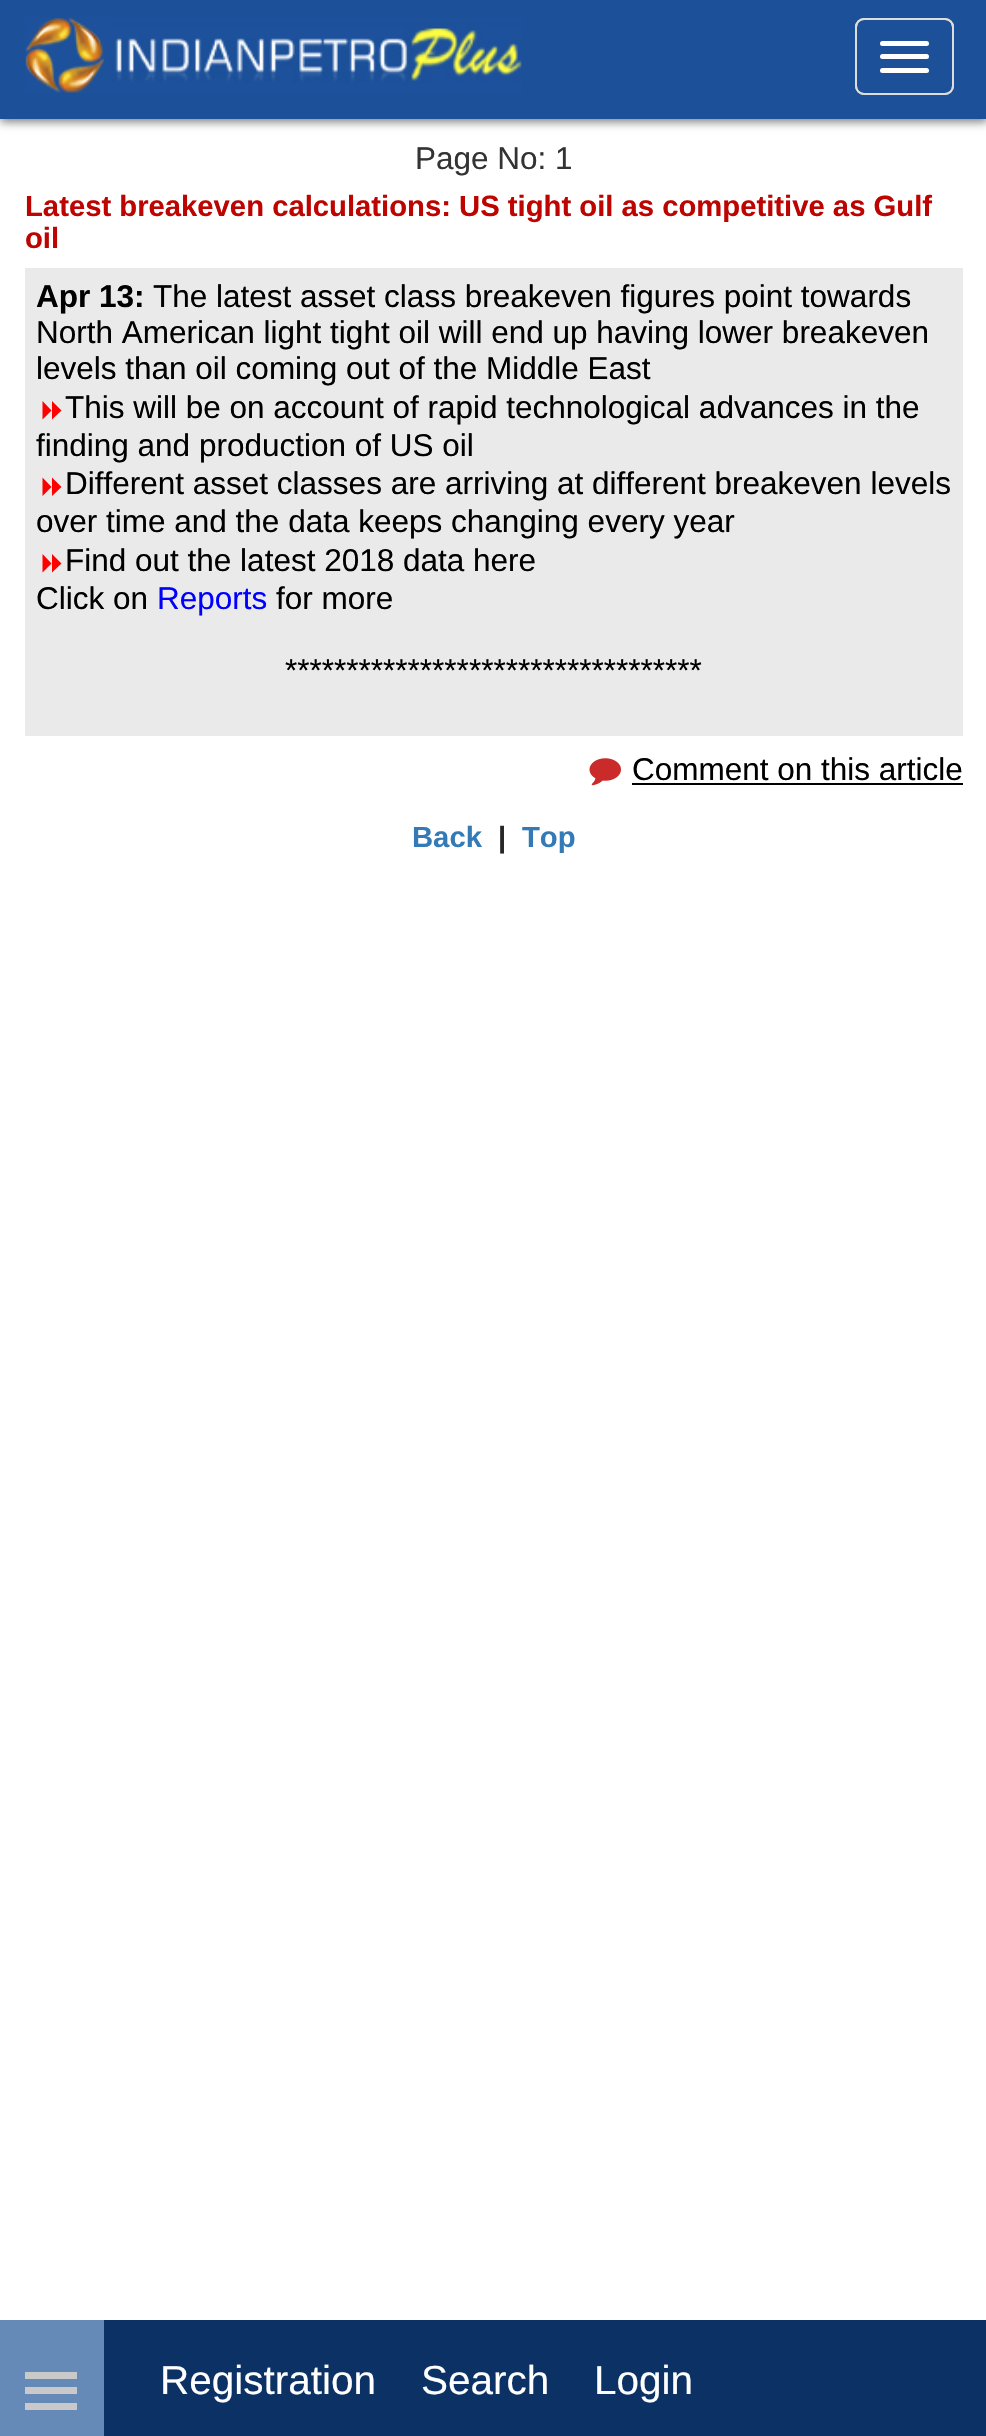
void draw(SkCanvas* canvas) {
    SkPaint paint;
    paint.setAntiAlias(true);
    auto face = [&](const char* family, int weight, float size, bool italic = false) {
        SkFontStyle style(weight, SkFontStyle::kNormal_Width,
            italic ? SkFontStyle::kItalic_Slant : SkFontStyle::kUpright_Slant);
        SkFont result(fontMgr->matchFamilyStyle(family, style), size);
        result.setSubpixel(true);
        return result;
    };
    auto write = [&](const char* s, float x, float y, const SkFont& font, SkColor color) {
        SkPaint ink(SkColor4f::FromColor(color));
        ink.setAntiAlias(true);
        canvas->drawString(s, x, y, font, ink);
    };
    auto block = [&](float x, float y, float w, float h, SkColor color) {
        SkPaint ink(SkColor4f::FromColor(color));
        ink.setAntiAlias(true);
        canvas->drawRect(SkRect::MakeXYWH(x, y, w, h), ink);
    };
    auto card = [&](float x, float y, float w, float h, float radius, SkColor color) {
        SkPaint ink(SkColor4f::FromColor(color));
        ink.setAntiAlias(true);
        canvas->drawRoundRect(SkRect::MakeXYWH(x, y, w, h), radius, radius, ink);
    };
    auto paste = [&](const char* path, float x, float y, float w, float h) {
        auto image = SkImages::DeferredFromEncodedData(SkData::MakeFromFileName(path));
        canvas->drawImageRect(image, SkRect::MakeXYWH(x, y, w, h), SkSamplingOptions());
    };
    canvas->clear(SK_ColorWHITE);
    paint.setColor(SkColorSetARGB(128, 0, 0, 0));
    paint.setMaskFilter(SkMaskFilter::MakeBlur(kNormal_SkBlurStyle, 4.5f));
    canvas->drawRect(SkRect::MakeXYWH(0, 2, 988, 120), paint);
    paint.setMaskFilter(nullptr);
    block(0, 0, 986, 119, SkColorSetRGB(28, 81, 154));
    paste("pic1.png", 25, 17, 497, 76);
    paint.setStyle(SkPaint::kStroke_Style);
    paint.setStrokeWidth(2);
    paint.setColor(SkColorSetRGB(221, 221, 221));
    canvas->drawRoundRect(SkRect::MakeXYWH(856, 19, 97, 75), 8, 8, paint);
    canvas->drawRoundRect(SkRect::MakeXYWH(856, 19, 97, 75), 8, 8, paint);
    card(880, 41, 49, 5, 2.5f, SK_ColorWHITE);
    card(880, 54, 49, 5, 2.5f, SK_ColorWHITE);
    card(880, 68, 49, 5, 2.5f, SK_ColorWHITE);
    auto kFont1 = face("Liberation Sans", 400, 31.5f);
    write("Page No: 1", 415, 169, kFont1, SkColorSetRGB(51, 51, 51));
    auto kFont2 = face("Liberation Sans", 700, 29.25f);
    write("Latest breakeven calculations: US tight oil as competitive as Gulf", 25, 216, kFont2, SkColorSetRGB(189, 4, 0));
    write("oil", 25, 248, kFont2, SkColorSetRGB(189, 4, 0));
    block(25, 268, 938, 468, SkColorSetRGB(234, 234, 234));
    auto kFont3 = face("Liberation Sans", 700, 31.5f);
    write("Apr 13:", 36, 307, kFont3, SK_ColorBLACK);
    write("The latest asset class breakeven figures point towards", 153, 307, kFont1, SK_ColorBLACK);
    write("North American light tight oil will end up having lower breakeven", 36, 343, kFont1, SK_ColorBLACK);
    write("levels than oil coming out of the Middle East", 36, 379, kFont1, SK_ColorBLACK);
    paint.setStyle(SkPaint::kFill_Style);
    paint.setColor(SkColorSetRGB(255, 0, 0));
    canvas->drawPath(SkPathBuilder().moveTo(61.5f, 410.5f).lineTo(52, 419.5f).lineTo(52, 401).close().moveTo(51.5f, 410.5f).lineTo(42.5f, 419.5f).lineTo(42.5f, 401).close().detach(), paint);
    write("This will be on account of rapid technological advances in the", 65, 418, kFont1, SK_ColorBLACK);
    write("finding and production of US oil", 36, 456, kFont1, SK_ColorBLACK);
    canvas->drawPath(SkPathBuilder().moveTo(61.5f, 487).lineTo(52, 496).lineTo(52, 477.5f).close().moveTo(51.5f, 487).lineTo(42.5f, 496).lineTo(42.5f, 477.5f).close().detach(), paint);
    write("Different asset classes are arriving at different breakeven levels", 65, 494, kFont1, SK_ColorBLACK);
    write("over time and the data keeps changing every year", 36, 532, kFont1, SK_ColorBLACK);
    canvas->drawPath(SkPathBuilder().moveTo(61.5f, 563.5f).lineTo(52, 572.5f).lineTo(52, 554).close().moveTo(51.5f, 563.5f).lineTo(42.5f, 572.5f).lineTo(42.5f, 554).close().detach(), paint);
    write("Find out the latest 2018 data here", 65, 571, kFont1, SK_ColorBLACK);
    write("Click on", 36, 609, kFont1, SK_ColorBLACK);
    write("Reports", 157, 609, kFont1, SkColorSetRGB(0, 0, 255));
    write("for more", 276, 609, kFont1, SK_ColorBLACK);
    write("**********************************", 285, 681, kFont1, SK_ColorBLACK);
    paste("pic2.png", 589, 758, 32, 28);
    write("Comment on this article", 632, 780, kFont1, SK_ColorBLACK);
    block(632, 783, 331, 2, SK_ColorBLACK);
    write("Back", 412, 847, kFont2, SkColorSetRGB(51, 122, 183));
    write("|", 498, 847, kFont2, SkColorSetRGB(38, 38, 38));
    write("Top", 522, 847, kFont2, SkColorSetRGB(51, 122, 183));
    block(104, 2320, 882, 116, SkColorSetRGB(11, 49, 101));
    block(0, 2320, 104, 116, SkColorSetRGB(101, 138, 183));
    block(25, 2387, 52, 7, SkColorSetRGB(201, 201, 201));
    block(25, 2372, 52, 7, SkColorSetRGB(201, 201, 201));
    block(25, 2403, 52, 7, SkColorSetRGB(201, 201, 201));
    auto kFont4 = face("Liberation Sans", 400, 40.5f);
    write("Registration", 160, 2394, kFont4, SK_ColorWHITE);
    write("Search", 421, 2394, kFont4, SK_ColorWHITE);
    write("Login", 594, 2394, kFont4, SK_ColorWHITE);
}
